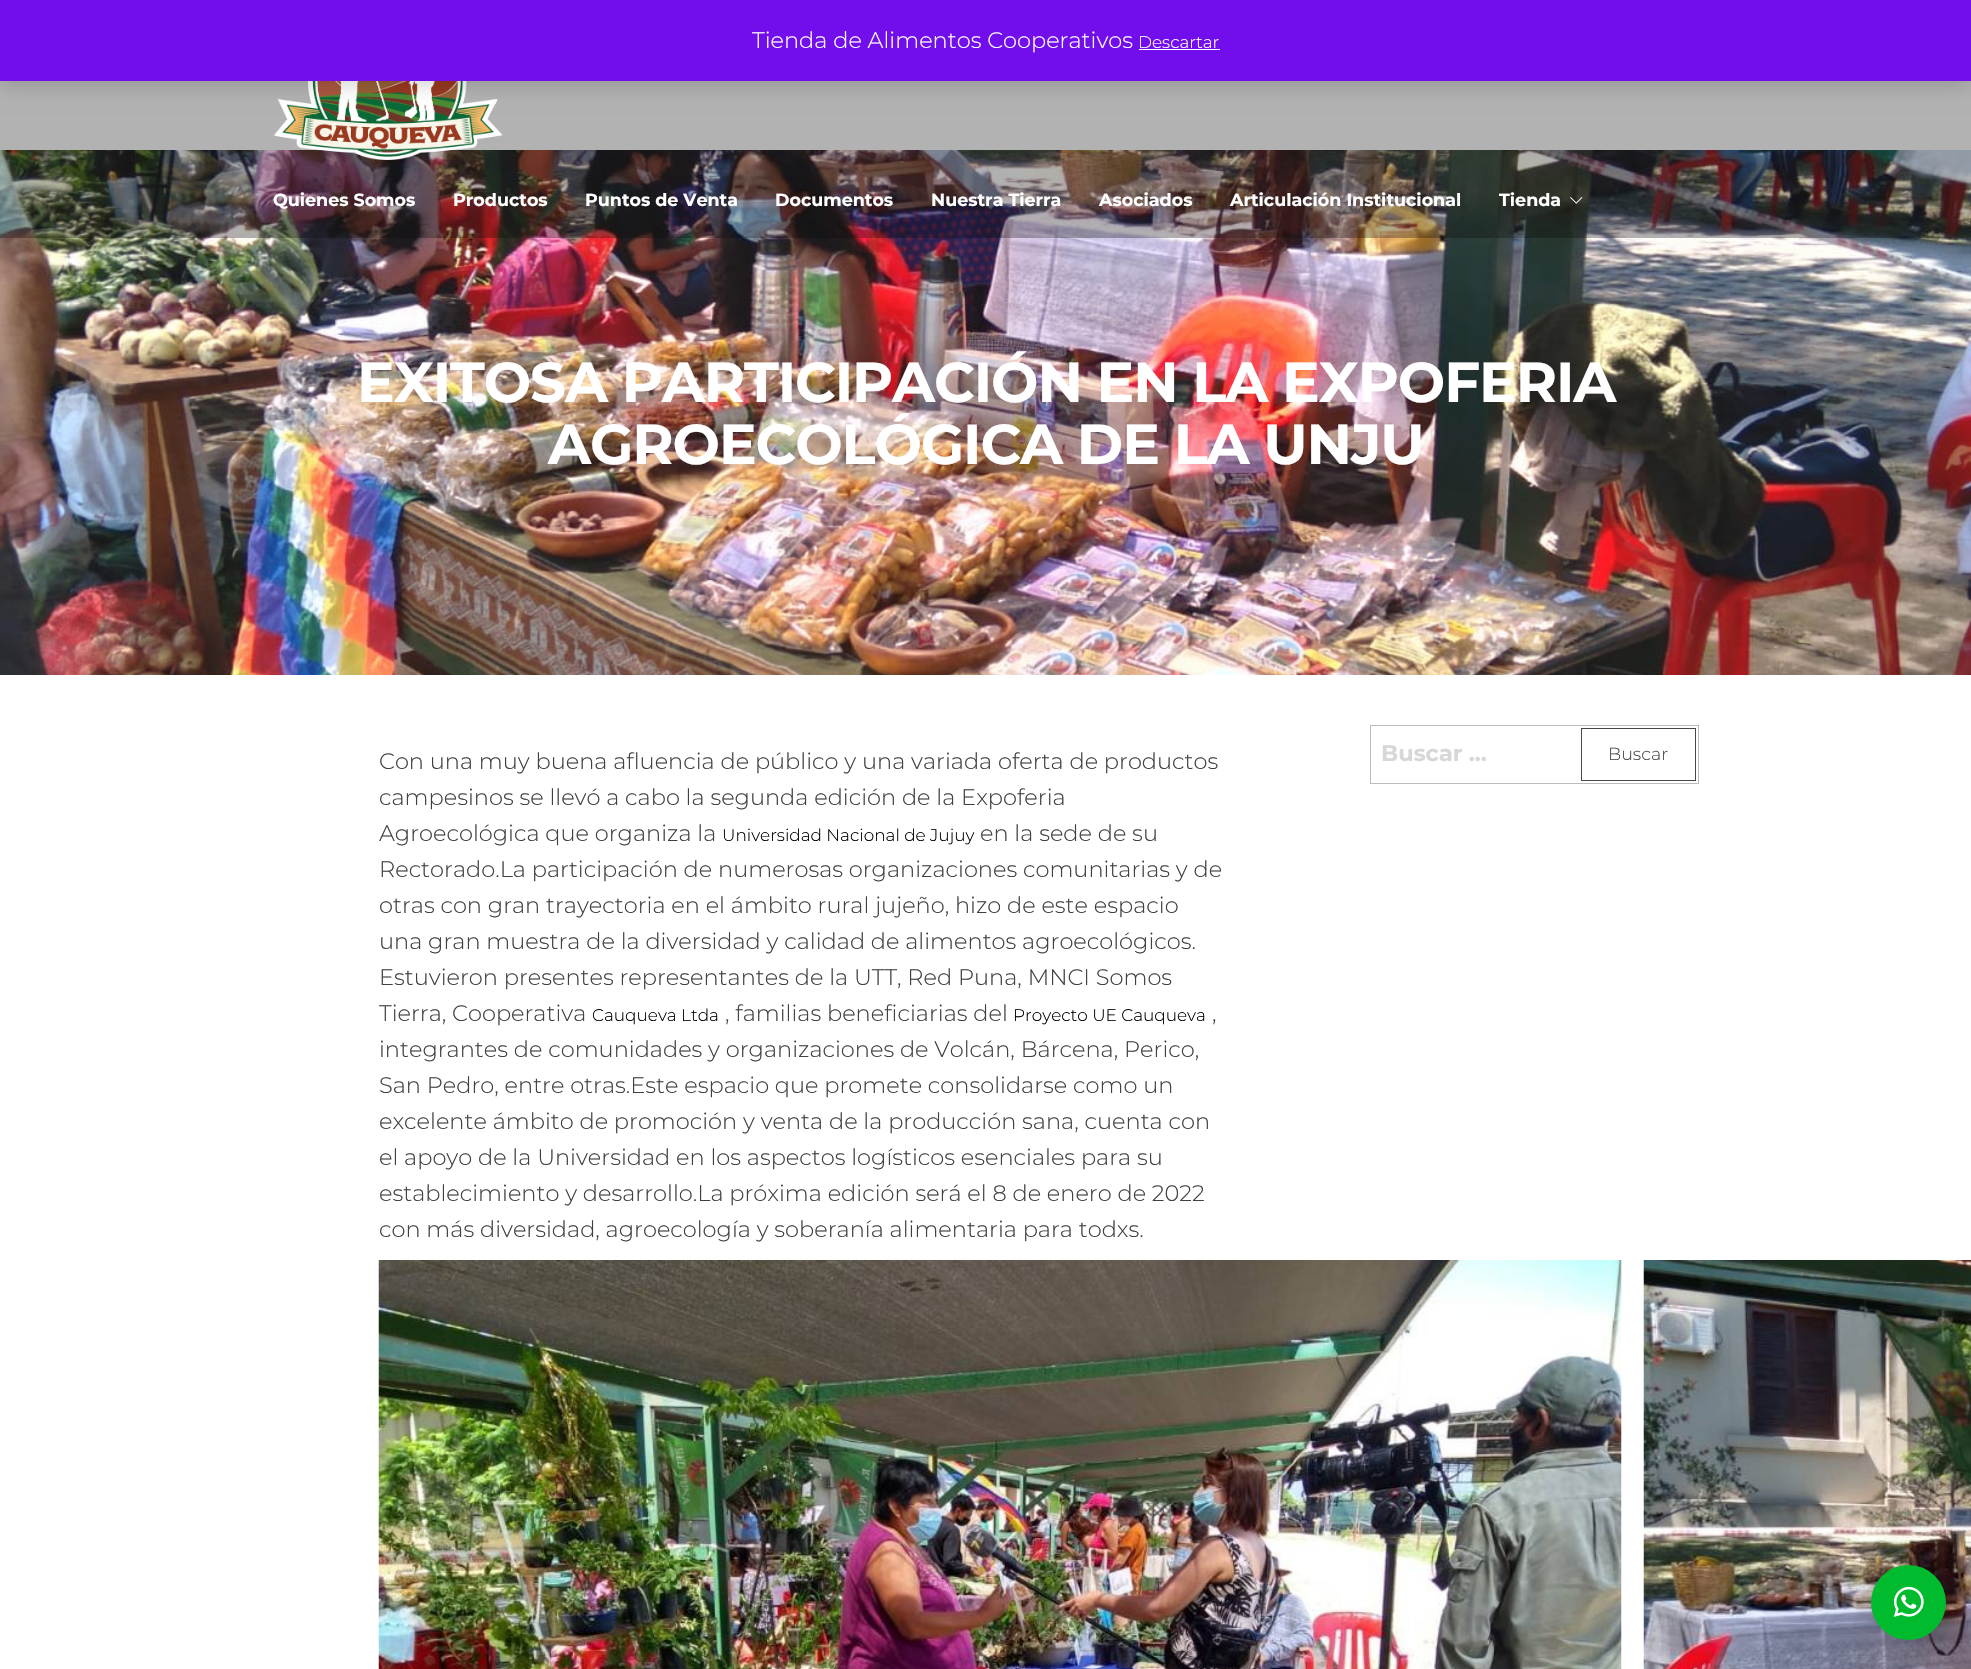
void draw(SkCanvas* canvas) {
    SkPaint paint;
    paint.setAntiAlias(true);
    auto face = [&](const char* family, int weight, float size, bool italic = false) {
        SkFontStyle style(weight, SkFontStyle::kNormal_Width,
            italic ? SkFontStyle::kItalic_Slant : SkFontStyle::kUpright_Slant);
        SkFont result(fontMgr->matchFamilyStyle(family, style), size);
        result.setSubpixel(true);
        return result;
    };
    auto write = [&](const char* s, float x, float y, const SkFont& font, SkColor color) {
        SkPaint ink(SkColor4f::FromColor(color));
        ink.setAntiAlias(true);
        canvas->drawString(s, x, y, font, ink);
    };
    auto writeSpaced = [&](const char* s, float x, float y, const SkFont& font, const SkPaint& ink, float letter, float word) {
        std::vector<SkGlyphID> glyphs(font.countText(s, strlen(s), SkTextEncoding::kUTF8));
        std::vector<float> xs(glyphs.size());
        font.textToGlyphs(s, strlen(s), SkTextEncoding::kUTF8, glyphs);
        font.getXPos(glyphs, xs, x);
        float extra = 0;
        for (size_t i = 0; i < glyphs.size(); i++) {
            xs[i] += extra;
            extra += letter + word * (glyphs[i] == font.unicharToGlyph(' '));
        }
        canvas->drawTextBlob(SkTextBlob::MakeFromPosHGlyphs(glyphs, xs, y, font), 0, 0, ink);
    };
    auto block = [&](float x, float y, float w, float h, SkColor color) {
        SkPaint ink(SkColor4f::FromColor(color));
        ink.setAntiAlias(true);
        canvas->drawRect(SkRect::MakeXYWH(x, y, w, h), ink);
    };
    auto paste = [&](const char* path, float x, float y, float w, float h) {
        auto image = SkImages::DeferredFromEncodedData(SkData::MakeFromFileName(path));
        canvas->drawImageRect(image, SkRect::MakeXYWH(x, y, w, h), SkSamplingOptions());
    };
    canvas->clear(SK_ColorWHITE);
    paste("pic3.png", 0, 150, 1971, 525);
    block(0, 81, 1971, 157, SkColorSetARGB(79, 8, 8, 8));
    paste("pic1.png", 273, 81, 230, 79);
    paint.setColor(SkColorSetARGB(51, 0, 0, 0));
    paint.setMaskFilter(SkMaskFilter::MakeBlur(kNormal_SkBlurStyle, 11));
    canvas->drawRect(SkRect::MakeXYWH(0, 1, 1971, 82), paint);
    paint.setMaskFilter(nullptr);
    block(0, 0, 1971, 81, SkColorSetRGB(114, 14, 236));
    auto kFont1 = face("Montserrat", 300, 22.5f);
    write("Tienda de Alimentos Cooperativos", 752, 48, kFont1, SK_ColorWHITE);
    auto kFont2 = face("Montserrat", 300, 16.9f);
    write("Descartar", 1138, 48, kFont2, SK_ColorWHITE);
    block(1139, 49, 81, 1, SkColorSetRGB(252, 251, 254));
    auto kFont3 = face("Montserrat", 700, 17.5f);
    write("Quienes Somos", 273, 206, kFont3, SK_ColorWHITE);
    write("Productos", 453, 206, kFont3, SK_ColorWHITE);
    write("Puntos de Venta", 585, 206, kFont3, SK_ColorWHITE);
    write("Documentos", 775, 206, kFont3, SK_ColorWHITE);
    write("Nuestra Tierra", 931, 206, kFont3, SK_ColorWHITE);
    write("Asociados", 1099, 206, kFont3, SK_ColorWHITE);
    write("Articulación Institucional", 1230, 206, kFont3, SK_ColorWHITE);
    write("Tienda", 1499, 206, kFont3, SK_ColorWHITE);
    paste("pic2.png", 1570, 197, 13, 7);
    auto kFont4 = face("Montserrat", 700, 56.25f);
    paint.setColor(SK_ColorWHITE);
    writeSpaced("EXITOSA PARTICIPACIÓN EN LA EXPOFERIA", 357, 402, kFont4, paint, -1.1f, 0);
    writeSpaced("AGROECOLÓGICA DE LA UNJU", 548, 464, kFont4, paint, -1.1f, 0);
    write("Con una muy buena afluencia de público y una variada oferta de productos", 379, 769, kFont1, SkColorSetRGB(64, 64, 64));
    write("campesinos se llevó a cabo la segunda edición de la Expoferia", 379, 805, kFont1, SkColorSetRGB(64, 64, 64));
    write("Agroecológica que organiza la", 379, 841, kFont1, SkColorSetRGB(64, 64, 64));
    write("Universidad Nacional de Jujuy", 722, 841, kFont2, SK_ColorBLACK);
    write("en la sede de su", 980, 841, kFont1, SkColorSetRGB(64, 64, 64));
    write("Rectorado.La participación de numerosas organizaciones comunitarias y de", 379, 877, kFont1, SkColorSetRGB(64, 64, 64));
    write("otras con gran trayectoria en el ámbito rural jujeño, hizo de este espacio", 379, 913, kFont1, SkColorSetRGB(64, 64, 64));
    write("una gran muestra de la diversidad y calidad de alimentos agroecológicos.", 379, 949, kFont1, SkColorSetRGB(64, 64, 64));
    write("Estuvieron presentes representantes de la UTT, Red Puna, MNCI Somos", 379, 985, kFont1, SkColorSetRGB(64, 64, 64));
    write("Tierra, Cooperativa", 379, 1021, kFont1, SkColorSetRGB(64, 64, 64));
    write("Cauqueva Ltda", 592, 1021, kFont2, SK_ColorBLACK);
    write(", familias beneficiarias del", 725, 1021, kFont1, SkColorSetRGB(64, 64, 64));
    write("Proyecto UE Cauqueva", 1013, 1021, kFont2, SK_ColorBLACK);
    write(",", 1212, 1021, kFont1, SkColorSetRGB(64, 64, 64));
    write("integrantes de comunidades y organizaciones de Volcán, Bárcena, Perico,", 379, 1057, kFont1, SkColorSetRGB(64, 64, 64));
    write("San Pedro, entre otras.Este espacio que promete consolidarse como un", 379, 1093, kFont1, SkColorSetRGB(64, 64, 64));
    write("excelente ámbito de promoción y venta de la producción sana, cuenta con", 379, 1129, kFont1, SkColorSetRGB(64, 64, 64));
    write("el apoyo de la Universidad en los aspectos logísticos esenciales para su", 379, 1165, kFont1, SkColorSetRGB(64, 64, 64));
    write("establecimiento y desarrollo.La próxima edición será el 8 de enero de 2022", 379, 1201, kFont1, SkColorSetRGB(64, 64, 64));
    write("con más diversidad, agroecología y soberanía alimentaria para todxs.", 379, 1237, kFont1, SkColorSetRGB(64, 64, 64));
    paste("pic4.png", 378, 1260, 1244, 409);
    paste("pic5.png", 1643, 1260, 328, 409);
    paint.setStyle(SkPaint::kStroke_Style);
    paint.setStrokeWidth(1);
    paint.setColor(SkColorSetRGB(187, 187, 187));
    canvas->drawRect(SkRect::MakeXYWH(1370.5f, 725.5f, 328, 58), paint);
    auto kFont5 = face("Montserrat", 700, 22.5f);
    write("Buscar …", 1381, 761, kFont5, SkColorSetRGB(215, 215, 215));
    paint.setColor(SkColorSetRGB(72, 72, 72));
    canvas->drawRect(SkRect::MakeXYWH(1581.5f, 728.5f, 114, 52), paint);
    auto kFont6 = face("Montserrat", 300, 17.5f);
    write("Buscar", 1608, 760, kFont6, SkColorSetRGB(72, 72, 72));
    paint.setStyle(SkPaint::kFill_Style);
    paint.setColor(SkColorSetARGB(41, 0, 0, 0));
    paint.setMaskFilter(SkMaskFilter::MakeBlur(kNormal_SkBlurStyle, 20));
    canvas->drawRoundRect(SkRect::MakeXYWH(1871, 1568, 75, 75), 37.5f, 37.5f, paint);
    paint.setMaskFilter(nullptr);
    paint.setColor(SkColorSetARGB(15, 0, 0, 0));
    paint.setMaskFilter(SkMaskFilter::MakeBlur(kNormal_SkBlurStyle, 4));
    canvas->drawRoundRect(SkRect::MakeXYWH(1871, 1566, 75, 75), 37.5f, 37.5f, paint);
    paint.setMaskFilter(nullptr);
    paint.setColor(SkColorSetRGB(0, 187, 45));
    canvas->drawCircle(1908.5f, 1602.5f, 37.5f, paint);
    paste("pic6.png", 1893, 1586, 31, 31);
}
